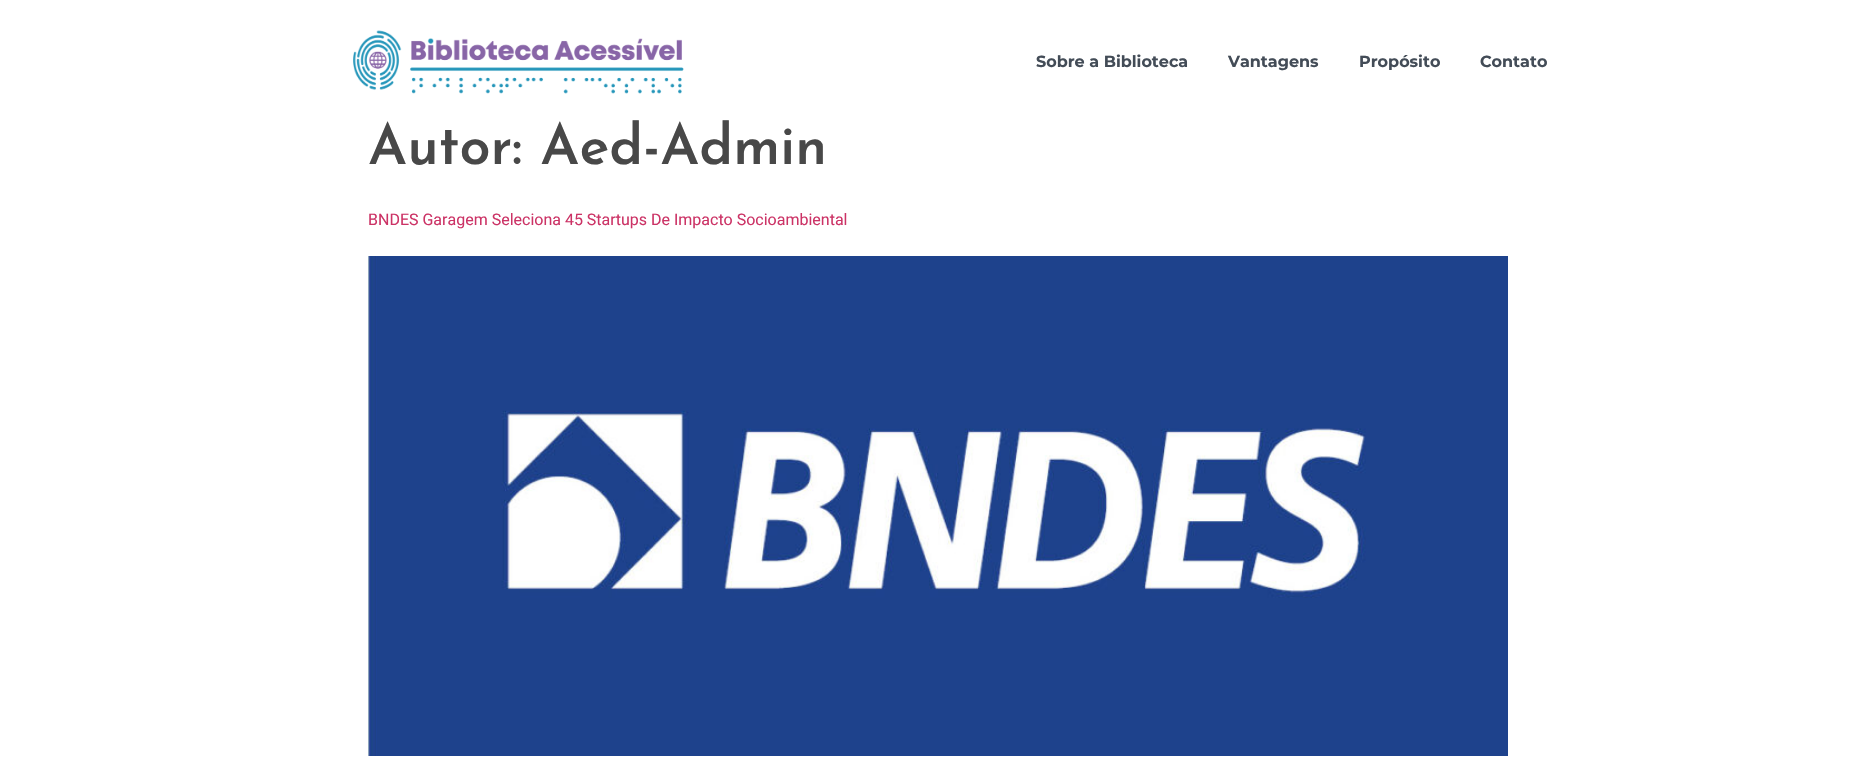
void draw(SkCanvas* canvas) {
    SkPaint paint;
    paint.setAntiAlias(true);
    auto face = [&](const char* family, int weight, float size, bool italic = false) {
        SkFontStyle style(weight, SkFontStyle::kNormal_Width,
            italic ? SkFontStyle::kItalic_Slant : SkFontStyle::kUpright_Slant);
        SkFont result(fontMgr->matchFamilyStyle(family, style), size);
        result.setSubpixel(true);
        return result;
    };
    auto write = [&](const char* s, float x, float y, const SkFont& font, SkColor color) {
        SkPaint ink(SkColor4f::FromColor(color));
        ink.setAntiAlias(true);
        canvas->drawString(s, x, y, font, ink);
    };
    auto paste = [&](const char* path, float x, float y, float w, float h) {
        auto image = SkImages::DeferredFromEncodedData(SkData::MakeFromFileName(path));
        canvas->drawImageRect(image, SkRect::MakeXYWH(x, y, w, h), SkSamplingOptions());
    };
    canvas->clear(SK_ColorWHITE);
    paste("pic1.png", 353, 30, 331, 64);
    auto kFont1 = face("Montserrat", 700, 16);
    write("Sobre a Biblioteca", 1036, 67, kFont1, SkColorSetRGB(67, 76, 87));
    write("Vantagens", 1228, 67, kFont1, SkColorSetRGB(67, 76, 87));
    write("Propósito", 1359, 67, kFont1, SkColorSetRGB(67, 76, 87));
    write("Contato", 1480, 67, kFont1, SkColorSetRGB(67, 76, 87));
    auto kFont2 = face("Josefin Sans", 600, 56);
    write("Autor: Aed-Admin", 368, 164, kFont2, SkColorSetRGB(72, 72, 72));
    auto kFont3 = face("Roboto", 400, 16);
    write("BNDES Garagem Seleciona 45 Startups De Impacto Socioambiental", 368, 225, kFont3, SkColorSetRGB(204, 51, 102));
    paste("pic2.png", 368, 256, 1140, 500);
}
